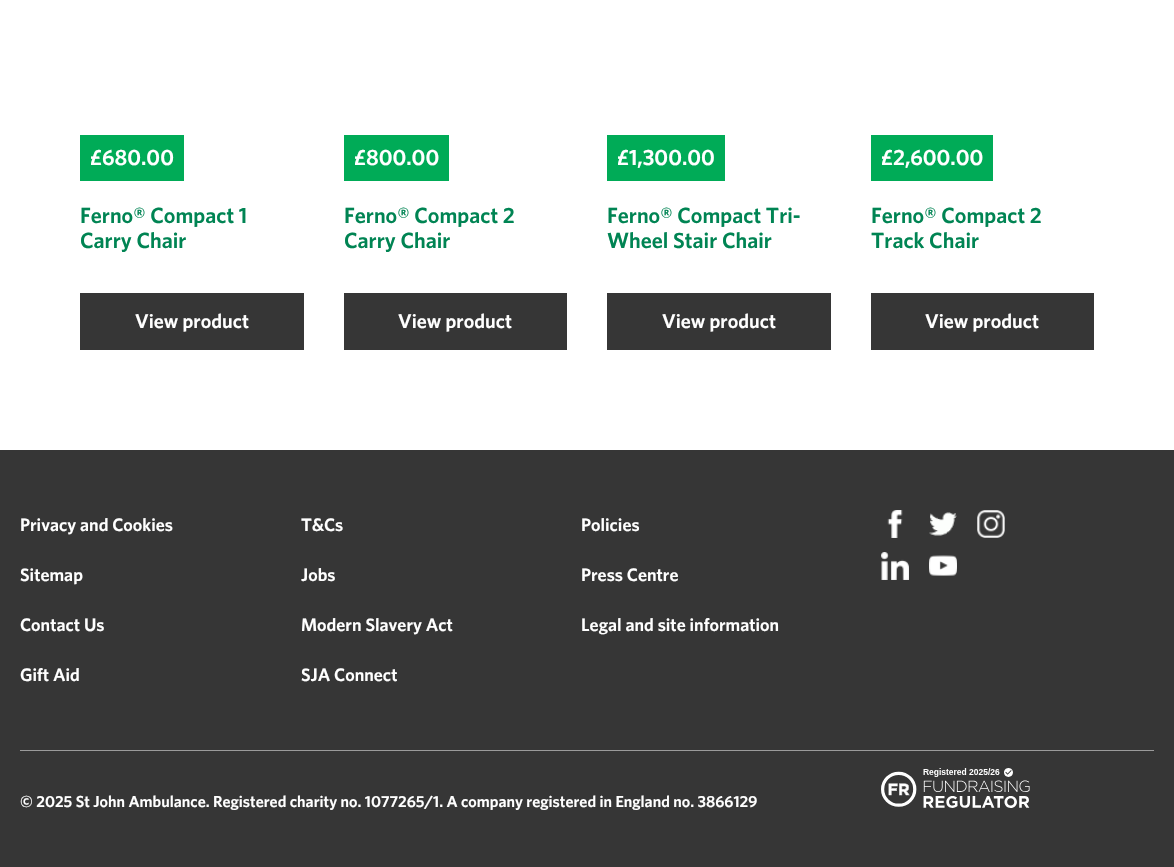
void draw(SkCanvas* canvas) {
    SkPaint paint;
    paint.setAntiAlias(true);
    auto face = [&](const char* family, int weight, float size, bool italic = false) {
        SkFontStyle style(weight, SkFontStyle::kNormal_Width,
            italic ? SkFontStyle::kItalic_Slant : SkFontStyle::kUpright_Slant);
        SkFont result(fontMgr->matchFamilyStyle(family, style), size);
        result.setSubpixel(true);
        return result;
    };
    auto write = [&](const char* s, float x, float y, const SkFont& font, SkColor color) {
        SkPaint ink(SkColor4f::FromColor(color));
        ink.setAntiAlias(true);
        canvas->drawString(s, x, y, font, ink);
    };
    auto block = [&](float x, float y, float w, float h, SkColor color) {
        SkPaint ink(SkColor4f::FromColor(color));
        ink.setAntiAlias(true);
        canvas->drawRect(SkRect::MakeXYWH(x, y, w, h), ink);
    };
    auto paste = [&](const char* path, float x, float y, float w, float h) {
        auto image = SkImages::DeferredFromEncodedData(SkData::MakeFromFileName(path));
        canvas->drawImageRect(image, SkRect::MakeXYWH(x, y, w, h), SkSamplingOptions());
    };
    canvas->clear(SkColorSetRGB(54, 54, 54));
    block(0, 0, 1174, 450, SK_ColorWHITE);
    block(80, 135, 104, 46, SkColorSetRGB(0, 171, 87));
    auto kFont1 = face("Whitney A", 600, 22);
    write("£680.00", 90, 165, kFont1, SK_ColorWHITE);
    write("Ferno® Compact 1", 80, 223, kFont1, SkColorSetRGB(0, 132, 83));
    write("Carry Chair", 80, 248, kFont1, SkColorSetRGB(0, 132, 83));
    block(80, 293, 224, 57, SkColorSetRGB(54, 54, 54));
    auto kFont2 = face("Whitney A", 600, 20);
    write("View product", 135, 328, kFont2, SK_ColorWHITE);
    block(344, 135, 105, 46, SkColorSetRGB(0, 171, 87));
    write("£800.00", 354, 165, kFont1, SK_ColorWHITE);
    write("Ferno® Compact 2", 344, 223, kFont1, SkColorSetRGB(0, 132, 83));
    write("Carry Chair", 344, 248, kFont1, SkColorSetRGB(0, 132, 83));
    block(344, 293, 223, 57, SkColorSetRGB(54, 54, 54));
    write("View product", 398, 328, kFont2, SK_ColorWHITE);
    block(607, 135, 118, 46, SkColorSetRGB(0, 171, 87));
    write("£1,300.00", 617, 165, kFont1, SK_ColorWHITE);
    write("Ferno® Compact Tri-", 607, 223, kFont1, SkColorSetRGB(0, 132, 83));
    write("Wheel Stair Chair", 607, 248, kFont1, SkColorSetRGB(0, 132, 83));
    block(607, 293, 224, 57, SkColorSetRGB(54, 54, 54));
    write("View product", 662, 328, kFont2, SK_ColorWHITE);
    block(871, 135, 122, 46, SkColorSetRGB(0, 171, 87));
    write("£2,600.00", 881, 165, kFont1, SK_ColorWHITE);
    write("Ferno® Compact 2", 871, 223, kFont1, SkColorSetRGB(0, 132, 83));
    write("Track Chair", 871, 248, kFont1, SkColorSetRGB(0, 132, 83));
    block(871, 293, 223, 57, SkColorSetRGB(54, 54, 54));
    write("View product", 925, 328, kFont2, SK_ColorWHITE);
    auto kFont3 = face("Whitney A", 600, 18);
    write("Privacy and Cookies", 20, 531, kFont3, SK_ColorWHITE);
    write("T&Cs", 301, 531, kFont3, SK_ColorWHITE);
    write("Policies", 581, 531, kFont3, SK_ColorWHITE);
    write("Sitemap", 20, 581, kFont3, SK_ColorWHITE);
    write("Jobs", 301, 581, kFont3, SK_ColorWHITE);
    write("Press Centre", 581, 581, kFont3, SK_ColorWHITE);
    write("Contact Us", 20, 631, kFont3, SK_ColorWHITE);
    write("Modern Slavery Act", 301, 631, kFont3, SK_ColorWHITE);
    write("Legal and site information", 581, 631, kFont3, SK_ColorWHITE);
    write("Gift Aid", 20, 681, kFont3, SK_ColorWHITE);
    write("SJA Connect", 301, 681, kFont3, SK_ColorWHITE);
    paste("pic1.png", 887, 510, 16, 28);
    paste("pic2.png", 929, 512, 28, 24);
    paste("pic3.png", 977, 510, 28, 28);
    paste("pic4.png", 881, 552, 28, 28);
    paste("pic5.png", 929, 555, 28, 21);
    block(20, 750, 1134, 1, SkColorSetRGB(155, 155, 155));
    auto kFont4 = face("Whitney A", 600, 16);
    write("© 2025 St John Ambulance. Registered charity no. 1077265/1. A company registered in England no. 3866129", 20, 807, kFont4, SK_ColorWHITE);
    paste("pic6.png", 881, 768, 149, 40);
}
